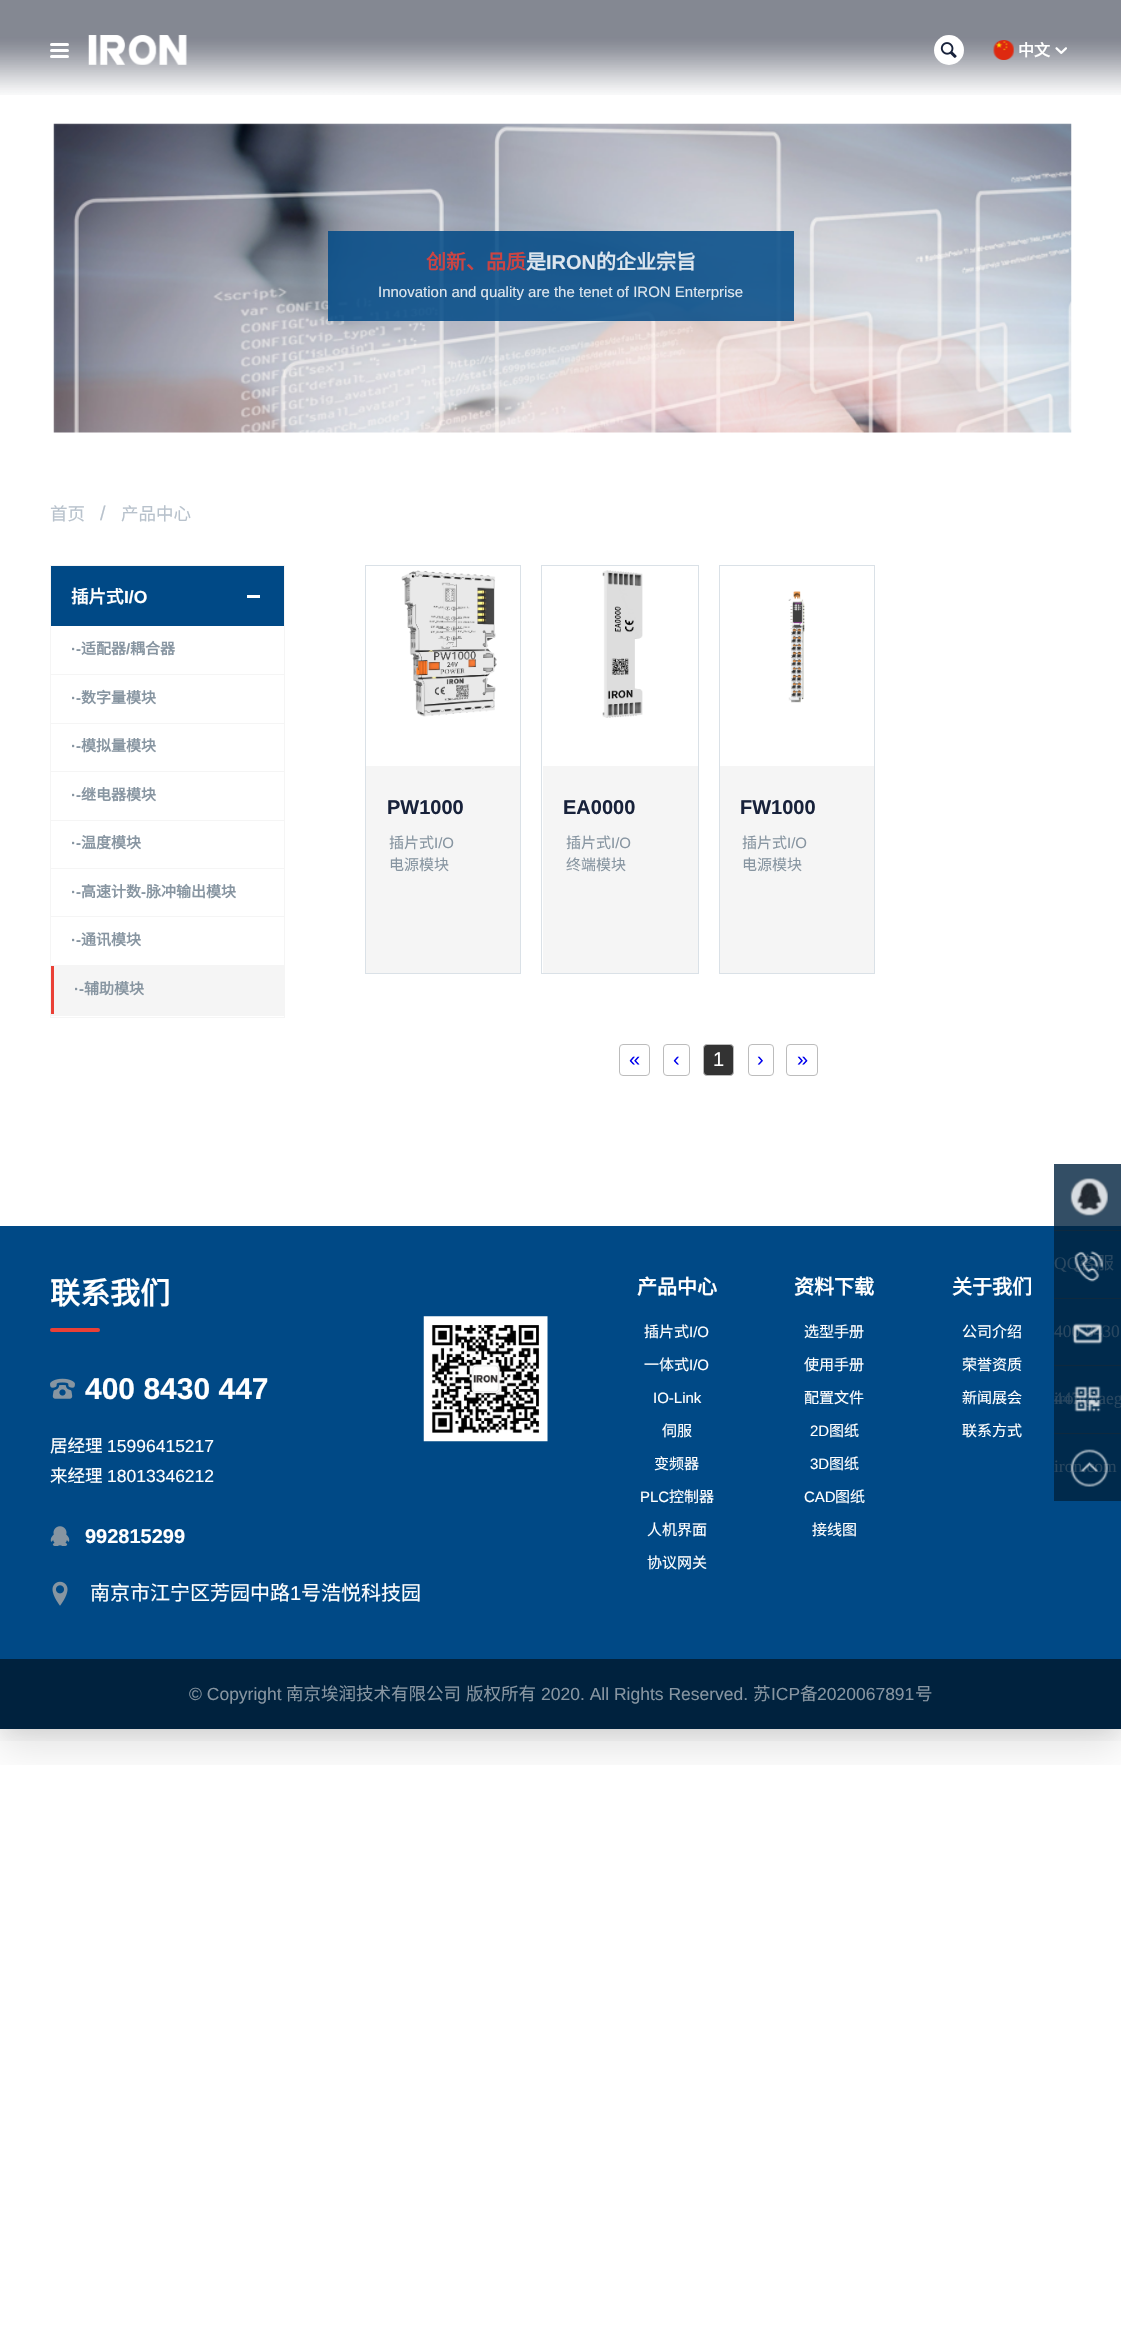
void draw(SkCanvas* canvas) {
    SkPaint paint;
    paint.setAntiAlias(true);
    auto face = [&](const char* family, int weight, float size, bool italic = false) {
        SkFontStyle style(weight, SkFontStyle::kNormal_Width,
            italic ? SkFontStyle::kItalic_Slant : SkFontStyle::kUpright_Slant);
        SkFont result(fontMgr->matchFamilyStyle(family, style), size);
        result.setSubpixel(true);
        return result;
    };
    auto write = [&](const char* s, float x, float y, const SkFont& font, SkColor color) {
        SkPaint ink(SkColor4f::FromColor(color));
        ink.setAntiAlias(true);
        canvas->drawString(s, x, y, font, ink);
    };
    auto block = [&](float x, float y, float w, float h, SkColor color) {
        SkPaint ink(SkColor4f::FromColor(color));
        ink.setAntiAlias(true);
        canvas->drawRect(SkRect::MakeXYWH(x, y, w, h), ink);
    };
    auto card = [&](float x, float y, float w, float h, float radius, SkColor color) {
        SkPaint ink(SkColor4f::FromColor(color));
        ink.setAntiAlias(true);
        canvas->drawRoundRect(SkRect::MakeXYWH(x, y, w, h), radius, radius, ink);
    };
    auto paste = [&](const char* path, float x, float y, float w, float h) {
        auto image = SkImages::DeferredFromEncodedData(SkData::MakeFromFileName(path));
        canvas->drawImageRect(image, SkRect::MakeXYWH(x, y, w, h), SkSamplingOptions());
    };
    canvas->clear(SK_ColorWHITE);
    block(1054, 1164, 67, 62, SkColorSetRGB(51, 78, 101));
    canvas->save();
    canvas->clipRect(SkRect::MakeXYWH(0, 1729, 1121, 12));
    paint.setColor(SkColorSetARGB(20, 0, 0, 0));
    paint.setMaskFilter(SkMaskFilter::MakeBlur(kNormal_SkBlurStyle, 9.5f));
    canvas->drawRect(SkRect::MakeXYWH(0, 6, 1121, 1729), paint);
    paint.setMaskFilter(nullptr);
    canvas->restore();
    canvas->save();
    canvas->clipRect(SkRect::MakeXYWH(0, 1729, 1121, 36));
    paint.setColor(SkColorSetARGB(28, 0, 0, 0));
    paint.setMaskFilter(SkMaskFilter::MakeBlur(kNormal_SkBlurStyle, 19));
    canvas->drawRect(SkRect::MakeXYWH(0, 19, 1121, 1729), paint);
    paint.setMaskFilter(nullptr);
    canvas->restore();
    paste("pic1.png", 0, 0, 1121, 95);
    card(50, 43, 19, 3, 1.5f, SK_ColorWHITE);
    card(50, 49, 19, 3, 1.5f, SK_ColorWHITE);
    card(50, 55, 19, 3, 1.5f, SK_ColorWHITE);
    paste("pic2.png", 88, 35, 99, 30);
    paint.setColor(SK_ColorWHITE);
    canvas->drawCircle(949, 50, 15, paint);
    paste("pic3.png", 940, 42, 17, 16);
    paste("pic4.png", 993, 40, 21, 20);
    auto kFont1 = face("Noto Sans CJK SC", 700, 16);
    write("中文", 1018, 56, kFont1, SK_ColorWHITE);
    paste("pic5.png", 1055, 47, 12, 7);
    paste("pic6.png", 53, 123, 1019, 310);
    block(328, 231, 466, 90, SkColorSetARGB(217, 0, 73, 134));
    auto kFont2 = face("Noto Sans CJK SC", 700, 20);
    write("创新、品质", 426, 269, kFont2, SkColorSetRGB(203, 68, 67));
    write("是", 526, 269, kFont2, SkColorSetRGB(221, 230, 238));
    auto kFont3 = face("Liberation Sans", 700, 20);
    write("IRON", 546, 269, kFont3, SkColorSetRGB(221, 230, 238));
    write("的企业宗旨", 596, 269, kFont2, SkColorSetRGB(221, 230, 238));
    auto kFont4 = face("Liberation Sans", 400, 15);
    write("Innovation and quality are the tenet of IRON Enterprise", 378, 297, kFont4, SkColorSetRGB(221, 230, 238));
    auto kFont5 = face("Noto Sans CJK SC", 400, 17.5f);
    write("首页", 50, 520, kFont5, SkColorSetRGB(184, 194, 204));
    auto kFont6 = face("Liberation Sans", 400, 20);
    write("/", 100, 520, kFont6, SkColorSetRGB(184, 194, 204));
    write("产品中心", 121, 520, kFont5, SkColorSetRGB(184, 194, 204));
    paint.setStyle(SkPaint::kStroke_Style);
    paint.setStrokeWidth(1);
    paint.setColor(SkColorSetRGB(245, 245, 245));
    canvas->drawRect(SkRect::MakeXYWH(50.5f, 565.5f, 234, 452), paint);
    block(51, 1014, 233, 2, SkColorSetRGB(245, 245, 245));
    block(51, 566, 233, 60, SkColorSetRGB(0, 73, 134));
    auto kFont7 = face("Noto Sans CJK SC", 700, 17.5f);
    write("插片式", 71, 603, kFont7, SK_ColorWHITE);
    auto kFont8 = face("Liberation Sans", 700, 17.5f);
    write("I/O", 124, 603, kFont8, SK_ColorWHITE);
    block(247, 595, 13, 3, SK_ColorWHITE);
    block(51, 674, 233, 1, SkColorSetRGB(245, 245, 245));
    auto kFont9 = face("Liberation Sans", 700, 15);
    write("·-", 71, 654, kFont9, SkColorSetRGB(135, 149, 161));
    auto kFont10 = face("Noto Sans CJK SC", 700, 15);
    write("适配器", 81, 654, kFont10, SkColorSetRGB(135, 149, 161));
    write("/", 126, 654, kFont9, SkColorSetRGB(135, 149, 161));
    write("耦合器", 130, 654, kFont10, SkColorSetRGB(135, 149, 161));
    block(51, 723, 233, 1, SkColorSetRGB(245, 245, 245));
    write("·-", 71, 703, kFont9, SkColorSetRGB(135, 149, 161));
    write("数字量模块", 81, 703, kFont10, SkColorSetRGB(135, 149, 161));
    block(51, 771, 233, 1, SkColorSetRGB(245, 245, 245));
    write("·-", 71, 751, kFont9, SkColorSetRGB(135, 149, 161));
    write("模拟量模块", 81, 751, kFont10, SkColorSetRGB(135, 149, 161));
    block(51, 820, 233, 1, SkColorSetRGB(245, 245, 245));
    write("·-", 71, 800, kFont9, SkColorSetRGB(135, 149, 161));
    write("继电器模块", 81, 800, kFont10, SkColorSetRGB(135, 149, 161));
    block(51, 868, 233, 1, SkColorSetRGB(245, 245, 245));
    write("·-", 71, 848, kFont9, SkColorSetRGB(135, 149, 161));
    write("温度模块", 81, 848, kFont10, SkColorSetRGB(135, 149, 161));
    block(51, 916, 233, 1, SkColorSetRGB(245, 245, 245));
    write("·-", 71, 897, kFont9, SkColorSetRGB(135, 149, 161));
    write("高速计数", 81, 897, kFont10, SkColorSetRGB(135, 149, 161));
    write("-", 141, 897, kFont9, SkColorSetRGB(135, 149, 161));
    write("脉冲输出模块", 146, 897, kFont10, SkColorSetRGB(135, 149, 161));
    block(51, 965, 233, 1, SkColorSetRGB(245, 245, 245));
    write("·-", 71, 945, kFont9, SkColorSetRGB(135, 149, 161));
    write("通讯模块", 81, 945, kFont10, SkColorSetRGB(135, 149, 161));
    block(54, 966, 230, 48, SkColorSetRGB(245, 245, 245));
    block(51, 966, 3, 48, SkColorSetRGB(234, 64, 54));
    write("·-", 74, 994, kFont9, SkColorSetRGB(135, 149, 161));
    write("辅助模块", 84, 994, kFont10, SkColorSetRGB(135, 149, 161));
    paint.setColor(SkColorSetRGB(218, 225, 231));
    canvas->drawRect(SkRect::MakeXYWH(365.5f, 565.5f, 155, 408), paint);
    paste("pic7.png", 401, 570, 96, 147);
    block(366, 766, 154, 207, SkColorSetRGB(245, 245, 245));
    write("PW1000", 387, 814, kFont3, SkColorSetRGB(24, 34, 59));
    auto kFont11 = face("Noto Sans CJK SC", 400, 15);
    write("插片式", 389, 848, kFont11, SkColorSetRGB(135, 149, 161));
    write("I/O", 434, 848, kFont4, SkColorSetRGB(135, 149, 161));
    write("电源模块", 389, 870, kFont11, SkColorSetRGB(135, 149, 161));
    canvas->drawRect(SkRect::MakeXYWH(541.5f, 565.5f, 157, 408), paint);
    paste("pic8.png", 602, 570, 41, 148);
    block(543, 766, 155, 207, SkColorSetRGB(245, 245, 245));
    write("EA0000", 563, 814, kFont3, SkColorSetRGB(24, 34, 59));
    write("插片式", 566, 848, kFont11, SkColorSetRGB(135, 149, 161));
    write("I/O", 611, 848, kFont4, SkColorSetRGB(135, 149, 161));
    write("终端模块", 566, 870, kFont11, SkColorSetRGB(135, 149, 161));
    canvas->drawRect(SkRect::MakeXYWH(719.5f, 565.5f, 155, 408), paint);
    paste("pic9.png", 788, 591, 17, 112);
    block(720, 766, 154, 207, SkColorSetRGB(245, 245, 245));
    write("FW1000", 740, 814, kFont3, SkColorSetRGB(24, 34, 59));
    write("插片式", 742, 848, kFont11, SkColorSetRGB(135, 149, 161));
    write("I/O", 787, 848, kFont4, SkColorSetRGB(135, 149, 161));
    write("电源模块", 742, 870, kFont11, SkColorSetRGB(135, 149, 161));
    paint.setColor(SkColorSetRGB(188, 188, 188));
    canvas->drawRoundRect(SkRect::MakeXYWH(619.5f, 1044.5f, 30, 31), 3.5f, 3.5f, paint);
    write("«", 629, 1066, kFont6, SkColorSetRGB(0, 0, 238));
    canvas->drawRoundRect(SkRect::MakeXYWH(663.5f, 1044.5f, 26, 31), 3.5f, 3.5f, paint);
    write("‹", 673, 1066, kFont6, SkColorSetRGB(0, 0, 238));
    paint.setStyle(SkPaint::kFill_Style);
    paint.setColor(SkColorSetRGB(51, 51, 51));
    canvas->drawRoundRect(SkRect::MakeXYWH(703.5f, 1044.5f, 30, 31), 3.5f, 3.5f, paint);
    paint.setStyle(SkPaint::kStroke_Style);
    paint.setColor(SkColorSetRGB(188, 188, 188));
    canvas->drawRoundRect(SkRect::MakeXYWH(703.5f, 1044.5f, 30, 31), 3.5f, 3.5f, paint);
    write("1", 713, 1066, kFont6, SK_ColorWHITE);
    canvas->drawRoundRect(SkRect::MakeXYWH(748.5f, 1044.5f, 25, 31), 3.5f, 3.5f, paint);
    write("›", 757, 1066, kFont6, SkColorSetRGB(0, 0, 238));
    canvas->drawRoundRect(SkRect::MakeXYWH(786.5f, 1044.5f, 31, 31), 3.5f, 3.5f, paint);
    write("»", 797, 1066, kFont6, SkColorSetRGB(0, 0, 238));
    block(0, 1226, 1121, 433, SkColorSetRGB(0, 73, 134));
    block(1054, 1434, 67, 67, SkColorSetRGB(0, 42, 76));
    block(1054, 1366, 67, 67, SkColorSetRGB(0, 42, 76));
    block(1054, 1299, 67, 66, SkColorSetRGB(0, 42, 76));
    block(1054, 1231, 67, 67, SkColorSetRGB(0, 42, 76));
    block(1054, 1226, 67, 4, SkColorSetRGB(0, 42, 76));
    auto kFont12 = face("Noto Sans CJK SC", 700, 30);
    write("联系我们", 50, 1304, kFont12, SK_ColorWHITE);
    card(50, 1328, 50, 4, 2, SkColorSetRGB(234, 64, 54));
    paste("pic10.png", 50, 1378, 25, 21);
    auto kFont13 = face("Liberation Sans", 700, 30);
    write("400 8430 447", 85, 1399, kFont13, SK_ColorWHITE);
    write("居经理", 50, 1452, kFont5, SK_ColorWHITE);
    auto kFont14 = face("Liberation Sans", 400, 17.5f);
    write("15996415217", 107, 1452, kFont14, SK_ColorWHITE);
    write("来经理", 50, 1482, kFont5, SK_ColorWHITE);
    write("18013346212", 107, 1482, kFont14, SK_ColorWHITE);
    paste("pic11.png", 50, 1526, 20, 20);
    write("992815299", 85, 1543, kFont3, SK_ColorWHITE);
    paste("pic12.png", 52, 1581, 16, 25);
    auto kFont15 = face("Noto Sans CJK SC", 400, 20);
    write("南京市江宁区芳园中路", 90, 1600, kFont15, SK_ColorWHITE);
    write("1", 290, 1600, kFont6, SK_ColorWHITE);
    write("号浩悦科技园", 301, 1600, kFont15, SK_ColorWHITE);
    paste("pic13.png", 423, 1316, 125, 126);
    write("产品中心", 637, 1294, kFont2, SK_ColorWHITE);
    write("插片式", 644, 1337, kFont11, SK_ColorWHITE);
    write("I/O", 689, 1337, kFont4, SK_ColorWHITE);
    write("一体式", 644, 1370, kFont11, SK_ColorWHITE);
    write("I/O", 689, 1370, kFont4, SK_ColorWHITE);
    write("IO-Link", 653, 1403, kFont4, SK_ColorWHITE);
    write("伺服", 662, 1436, kFont11, SK_ColorWHITE);
    write("变频器", 654, 1469, kFont11, SK_ColorWHITE);
    write("PLC", 640, 1502, kFont4, SK_ColorWHITE);
    write("控制器", 669, 1502, kFont11, SK_ColorWHITE);
    write("人机界面", 647, 1535, kFont11, SK_ColorWHITE);
    write("协议网关", 647, 1568, kFont11, SK_ColorWHITE);
    write("资料下载", 794, 1294, kFont2, SK_ColorWHITE);
    write("选型手册", 804, 1337, kFont11, SK_ColorWHITE);
    write("使用手册", 804, 1370, kFont11, SK_ColorWHITE);
    write("配置文件", 804, 1403, kFont11, SK_ColorWHITE);
    write("2D", 810, 1436, kFont4, SK_ColorWHITE);
    write("图纸", 829, 1436, kFont11, SK_ColorWHITE);
    write("3D", 810, 1469, kFont4, SK_ColorWHITE);
    write("图纸", 829, 1469, kFont11, SK_ColorWHITE);
    write("CAD", 804, 1502, kFont4, SK_ColorWHITE);
    write("图纸", 835, 1502, kFont11, SK_ColorWHITE);
    write("接线图", 812, 1535, kFont11, SK_ColorWHITE);
    write("关于我们", 952, 1294, kFont2, SK_ColorWHITE);
    write("公司介绍", 962, 1337, kFont11, SK_ColorWHITE);
    write("荣誉资质", 962, 1370, kFont11, SK_ColorWHITE);
    write("新闻展会", 962, 1403, kFont11, SK_ColorWHITE);
    write("联系方式", 962, 1436, kFont11, SK_ColorWHITE);
    block(0, 1659, 1121, 70, SkColorSetRGB(0, 34, 62));
    write("© Copyright", 189, 1700, kFont14, SkColorSetRGB(135, 149, 161));
    write("南京埃润技术有限公司", 286, 1700, kFont5, SkColorSetRGB(135, 149, 161));
    write("版权所有", 466, 1700, kFont5, SkColorSetRGB(135, 149, 161));
    write("2020. All Rights Reserved.", 541, 1700, kFont14, SkColorSetRGB(135, 149, 161));
    write("苏", 753, 1700, kFont5, SkColorSetRGB(135, 149, 161));
    write("ICP", 771, 1700, kFont14, SkColorSetRGB(135, 149, 161));
    write("备", 800, 1700, kFont5, SkColorSetRGB(135, 149, 161));
    write("2020067891", 817, 1700, kFont14, SkColorSetRGB(135, 149, 161));
    write("号", 915, 1700, kFont5, SkColorSetRGB(135, 149, 161));
    block(1054, 1230, 67, 1, SkColorSetRGB(14, 41, 63));
    paste("pic14.png", 1070, 1178, 38, 38);
    auto kFont16 = face("Liberation Serif", 400, 17.5f);
    write("QQ", 1054, 1269, kFont16, SkColorSetRGB(41, 71, 96));
    write("客服", 1079, 1269, kFont5, SkColorSetRGB(41, 71, 96));
    block(1054, 1298, 67, 1, SkColorSetRGB(14, 41, 63));
    paste("pic15.png", 1074, 1251, 29, 31);
    write("400 8430", 1054, 1337, kFont16, SkColorSetRGB(41, 71, 96));
    write("447", 1054, 1404, kFont16, SkColorSetRGB(41, 71, 96));
    block(1054, 1433, 67, 1, SkColorSetRGB(14, 41, 63));
    write("iron@aeg", 1054, 1404, kFont16, SkColorSetRGB(41, 71, 96));
    paste("pic16.png", 1074, 1386, 27, 26);
    block(1054, 1365, 67, 1, SkColorSetRGB(14, 41, 63));
    paste("pic17.png", 1072, 1323, 31, 22);
    write("iron.com", 1054, 1472, kFont16, SkColorSetRGB(41, 71, 96));
    paste("pic18.png", 1070, 1449, 38, 38);
}
